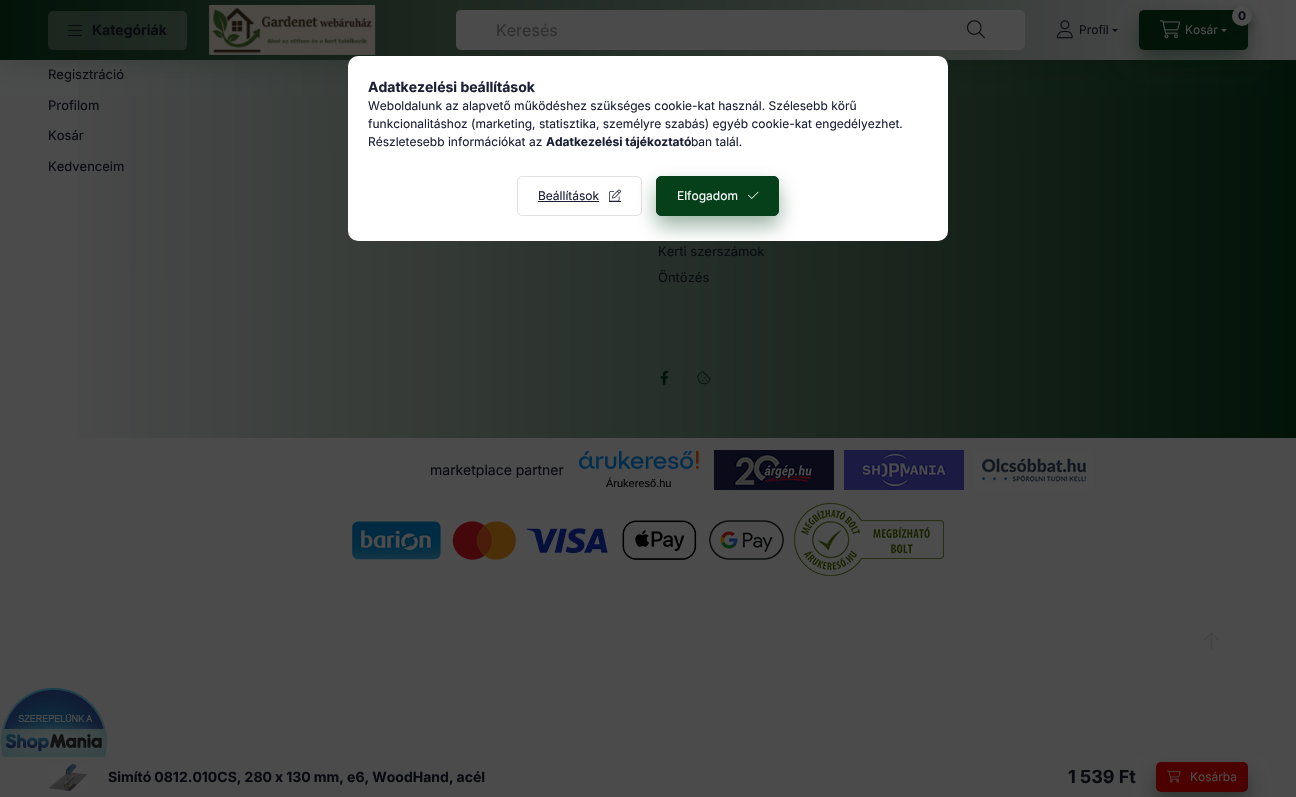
void draw(SkCanvas* canvas) {
    SkPaint paint;
    paint.setAntiAlias(true);
    auto face = [&](const char* family, int weight, float size, bool italic = false) {
        SkFontStyle style(weight, SkFontStyle::kNormal_Width,
            italic ? SkFontStyle::kItalic_Slant : SkFontStyle::kUpright_Slant);
        SkFont result(fontMgr->matchFamilyStyle(family, style), size);
        result.setSubpixel(true);
        return result;
    };
    auto write = [&](const char* s, float x, float y, const SkFont& font, SkColor color) {
        SkPaint ink(SkColor4f::FromColor(color));
        ink.setAntiAlias(true);
        canvas->drawString(s, x, y, font, ink);
    };
    auto writeSpaced = [&](const char* s, float x, float y, const SkFont& font, const SkPaint& ink, float letter, float word) {
        std::vector<SkGlyphID> glyphs(font.countText(s, strlen(s), SkTextEncoding::kUTF8));
        std::vector<float> xs(glyphs.size());
        font.textToGlyphs(s, strlen(s), SkTextEncoding::kUTF8, glyphs);
        font.getXPos(glyphs, xs, x);
        float extra = 0;
        for (size_t i = 0; i < glyphs.size(); i++) {
            xs[i] += extra;
            extra += letter + word * (glyphs[i] == font.unicharToGlyph(' '));
        }
        canvas->drawTextBlob(SkTextBlob::MakeFromPosHGlyphs(glyphs, xs, y, font), 0, 0, ink);
    };
    auto block = [&](float x, float y, float w, float h, SkColor color) {
        SkPaint ink(SkColor4f::FromColor(color));
        ink.setAntiAlias(true);
        canvas->drawRect(SkRect::MakeXYWH(x, y, w, h), ink);
    };
    auto card = [&](float x, float y, float w, float h, float radius, SkColor color) {
        SkPaint ink(SkColor4f::FromColor(color));
        ink.setAntiAlias(true);
        canvas->drawRoundRect(SkRect::MakeXYWH(x, y, w, h), radius, radius, ink);
    };
    auto paste = [&](const char* path, float x, float y, float w, float h) {
        auto image = SkImages::DeferredFromEncodedData(SkData::MakeFromFileName(path));
        canvas->drawImageRect(image, SkRect::MakeXYWH(x, y, w, h), SkSamplingOptions());
    };
    canvas->clear(SkColorSetRGB(75, 75, 75));
    {
        const SkColor colors[] = {SkColorSetRGB(77, 77, 77), SkColorSetRGB(2, 19, 8)};
        const float stops[] = {0, 1};
        const SkPoint ends[] = {{0, 399}, {1296, 398}};
        paint.setShader(SkGradientShader::MakeLinear(ends, colors, stops, 2, SkTileMode::kClamp));
        paint.setAlpha(255);
    }
    canvas->drawRect(SkRect::MakeXYWH(78, 60, 1218, 378), paint);
    paint.setShader(nullptr);
    paint.setColor(SkColorSetARGB(51, 2, 19, 8));
    paint.setMaskFilter(SkMaskFilter::MakeBlur(kNormal_SkBlurStyle, 15));
    canvas->drawRect(SkRect::MakeXYWH(0, 0, 1296, 60), paint);
    paint.setMaskFilter(nullptr);
    {
        const SkColor colors[] = {SkColorSetRGB(2, 19, 8), SkColorSetRGB(77, 77, 77)};
        const float stops[] = {0, 1};
        const SkPoint ends[] = {{0, 399}, {1296, 398}};
        paint.setShader(SkGradientShader::MakeLinear(ends, colors, stops, 2, SkTileMode::kClamp));
        paint.setAlpha(255);
    }
    canvas->drawRect(SkRect::MakeXYWH(0, 0, 1296, 60), paint);
    card(48, 11, 139, 39, 5, SkColorSetARGB(77, 77, 77, 77));
    block(68, 25, 14, 1, SkColorSetRGB(8, 10, 16));
    block(68, 30, 14, 1, SkColorSetRGB(8, 10, 16));
    block(68, 35, 14, 1, SkColorSetRGB(8, 10, 16));
    auto kFont1 = face("Inter", 700, 14);
    write("Kategóriák", 92, 35, kFont1, SkColorSetRGB(8, 10, 16));
    paste("pic1.png", 208, 5, 168, 50);
    card(456, 10, 569, 40, 5, SkColorSetRGB(75, 75, 75));
    auto kFont2 = face("Inter", 400, 16);
    write("Keresés", 496, 36, kFont2, SkColorSetRGB(46, 46, 46));
    paste("pic2.png", 967, 20, 18, 19);
    paste("pic3.png", 1057, 20, 16, 19);
    auto kFont3 = face("Inter", 400, 12);
    write("Profil", 1079, 34, kFont3, SkColorSetRGB(8, 10, 16));
    paint.setShader(nullptr);
    paint.setColor(SkColorSetARGB(102, 2, 19, 8));
    paint.setMaskFilter(SkMaskFilter::MakeBlur(kNormal_SkBlurStyle, 10));
    canvas->drawRoundRect(SkRect::MakeXYWH(1139, 20, 109, 40), 5, 5, paint);
    paint.setMaskFilter(nullptr);
    paint.setColor(SkColorSetRGB(8, 10, 16));
    canvas->drawPath(SkPathBuilder().moveTo(1112, 29).lineTo(1118, 29).lineTo(1115, 32).close().detach(), paint);
    card(1139, 10, 109, 40, 5, SkColorSetRGB(2, 19, 8));
    paint.setColor(SkColorSetARGB(102, 2, 19, 8));
    paint.setMaskFilter(SkMaskFilter::MakeBlur(kNormal_SkBlurStyle, 5));
    canvas->drawRoundRect(SkRect::MakeXYWH(1232, 11, 20, 20), 10, 10, paint);
    paint.setMaskFilter(nullptr);
    paint.setColor(SkColorSetRGB(77, 77, 77));
    canvas->drawCircle(1242, 16, 10, paint);
    auto kFont4 = face("Inter", 700, 12);
    write("0", 1238, 20, kFont4, SkColorSetRGB(8, 10, 16));
    paste("pic4.png", 1160, 20, 21, 19);
    write("Kosár", 1185, 34, kFont3, SkColorSetRGB(77, 77, 77));
    canvas->drawPath(SkPathBuilder().moveTo(1221, 29).lineTo(1227, 29).lineTo(1224, 32).close().detach(), paint);
    auto kFont5 = face("Inter", 400, 13);
    write("Regisztráció", 48, 79, kFont5, SkColorSetRGB(8, 10, 16));
    write("Profilom", 48, 110, kFont5, SkColorSetRGB(8, 10, 16));
    write("Kosár", 48, 140, kFont5, SkColorSetRGB(8, 10, 16));
    write("Kedvenceim", 48, 171, kFont5, SkColorSetRGB(8, 10, 16));
    write("Kerti szerszámok", 658, 256, kFont5, SkColorSetRGB(8, 10, 16));
    write("Öntözés", 658, 282, kFont5, SkColorSetRGB(8, 10, 16));
    paste("pic5.png", 660, 370, 9, 15);
    paste("pic6.png", 697, 371, 14, 14);
    auto kFont6 = face("Inter", 400, 14);
    write("marketplace partner", 430, 475, kFont6, SkColorSetRGB(8, 10, 16));
    paste("pic7.png", 714, 450, 120, 40);
    paste("pic8.png", 844, 450, 120, 40);
    paste("pic9.png", 974, 450, 120, 40);
    paste("pic10.png", 579, 451, 120, 18);
    auto kFont7 = face("Liberation Sans", 400, 11);
    write("Árukereső.hu", 606, 487, kFont7, SK_ColorBLACK);
    paste("pic11.png", 352, 520, 432, 40);
    paste("pic12.png", 794, 503, 150, 73);
    paste("pic13.png", 48, 763, 40, 29);
    paint.setColor(SkColorSetRGB(8, 10, 16));
    writeSpaced("Simító 0812.010CS, 280 x 130 mm, e6, WoodHand, acél", 108, 782, kFont1, paint, 0, -0.25f);
    auto kFont8 = face("Inter", 700, 18);
    write("1 539 Ft", 1068, 783, kFont8, SkColorSetRGB(8, 10, 16));
    canvas->save();
    canvas->clipRect(SkRect::MakeXYWH(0, 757, 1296, 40));
    paint.setColor(SkColorSetARGB(102, 2, 19, 8));
    paint.setMaskFilter(SkMaskFilter::MakeBlur(kNormal_SkBlurStyle, 10));
    canvas->drawRoundRect(SkRect::MakeXYWH(1156, 772, 92, 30), 5, 5, paint);
    paint.setMaskFilter(nullptr);
    canvas->restore();
    card(1156, 762, 92, 30, 5, SkColorSetRGB(76, 1, 1));
    paste("pic14.png", 1167, 770, 14, 13);
    write("Kosárba", 1190, 781, kFont3, SkColorSetRGB(77, 77, 77));
    card(348, 56, 600, 185, 10, SK_ColorWHITE);
    write("Adatkezelési beállítások", 368, 92, kFont1, SkColorSetRGB(27, 32, 54));
    write("Weboldalunk az alapvető működéshez szükséges cookie-kat használ. Szélesebb körű", 368, 110, kFont3, SkColorSetRGB(27, 32, 54));
    write("funkcionalitáshoz (marketing, statisztika, személyre szabás) egyéb cookie-kat engedélyezhet.", 368, 128, kFont3, SkColorSetRGB(27, 32, 54));
    write("Részletesebb információkat az", 368, 146, kFont3, SkColorSetRGB(27, 32, 54));
    write("Adatkezelési tájékoztató", 546, 146, kFont4, SkColorSetRGB(27, 32, 54));
    write("ban talál.", 691, 146, kFont3, SkColorSetRGB(27, 32, 54));
    paint.setStyle(SkPaint::kStroke_Style);
    paint.setStrokeWidth(1);
    paint.setColor(SkColorSetRGB(225, 225, 225));
    canvas->drawRoundRect(SkRect::MakeXYWH(517.5f, 176.5f, 124, 39), 4.5f, 4.5f, paint);
    write("Beállítások", 538, 200, kFont3, SkColorSetRGB(27, 32, 54));
    block(538, 201, 61, 1, SkColorSetRGB(27, 32, 54));
    paste("pic15.png", 609, 189, 12, 12);
    block(609, 201, 12, 1, SkColorSetRGB(27, 32, 54));
    canvas->save();
    canvas->clipPath(SkPathBuilder().moveTo(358, 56).lineTo(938, 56).cubicTo(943.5f, 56, 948, 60.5f, 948, 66).lineTo(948, 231).cubicTo(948, 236.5f, 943.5f, 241, 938, 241).lineTo(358, 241).cubicTo(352.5f, 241, 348, 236.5f, 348, 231).lineTo(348, 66).cubicTo(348, 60.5f, 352.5f, 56, 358, 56).close().detach(), true);
    paint.setStyle(SkPaint::kFill_Style);
    paint.setColor(SkColorSetARGB(102, 5, 64, 27));
    paint.setMaskFilter(SkMaskFilter::MakeBlur(kNormal_SkBlurStyle, 10));
    canvas->drawRoundRect(SkRect::MakeXYWH(656, 186, 123, 40), 5, 5, paint);
    paint.setMaskFilter(nullptr);
    canvas->restore();
    paint.setColor(SkColorSetRGB(5, 64, 27));
    canvas->drawRoundRect(SkRect::MakeXYWH(656.5f, 176.5f, 122, 39), 4.5f, 4.5f, paint);
    paint.setStyle(SkPaint::kStroke_Style);
    canvas->drawRoundRect(SkRect::MakeXYWH(656.5f, 176.5f, 122, 39), 4.5f, 4.5f, paint);
    write("Elfogadom", 677, 200, kFont3, SK_ColorWHITE);
    paste("pic16.png", 748, 191, 11, 8);
    paste("pic17.png", 1204, 633, 15, 17);
    paste("pic18.png", 0, 688, 107, 69);
}
